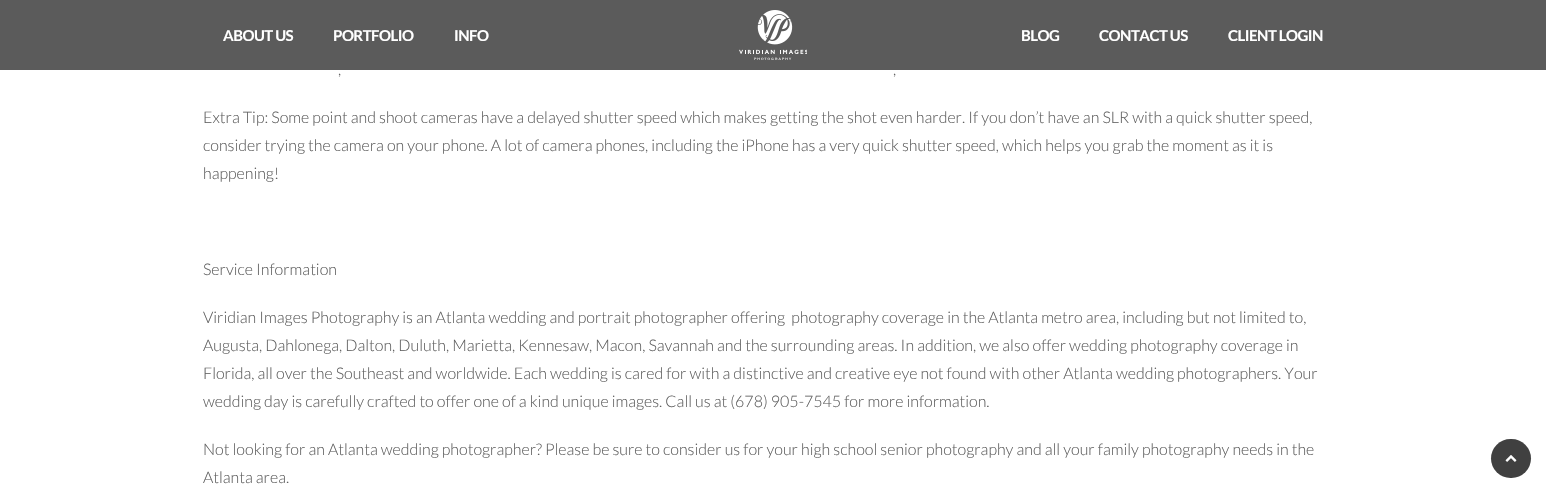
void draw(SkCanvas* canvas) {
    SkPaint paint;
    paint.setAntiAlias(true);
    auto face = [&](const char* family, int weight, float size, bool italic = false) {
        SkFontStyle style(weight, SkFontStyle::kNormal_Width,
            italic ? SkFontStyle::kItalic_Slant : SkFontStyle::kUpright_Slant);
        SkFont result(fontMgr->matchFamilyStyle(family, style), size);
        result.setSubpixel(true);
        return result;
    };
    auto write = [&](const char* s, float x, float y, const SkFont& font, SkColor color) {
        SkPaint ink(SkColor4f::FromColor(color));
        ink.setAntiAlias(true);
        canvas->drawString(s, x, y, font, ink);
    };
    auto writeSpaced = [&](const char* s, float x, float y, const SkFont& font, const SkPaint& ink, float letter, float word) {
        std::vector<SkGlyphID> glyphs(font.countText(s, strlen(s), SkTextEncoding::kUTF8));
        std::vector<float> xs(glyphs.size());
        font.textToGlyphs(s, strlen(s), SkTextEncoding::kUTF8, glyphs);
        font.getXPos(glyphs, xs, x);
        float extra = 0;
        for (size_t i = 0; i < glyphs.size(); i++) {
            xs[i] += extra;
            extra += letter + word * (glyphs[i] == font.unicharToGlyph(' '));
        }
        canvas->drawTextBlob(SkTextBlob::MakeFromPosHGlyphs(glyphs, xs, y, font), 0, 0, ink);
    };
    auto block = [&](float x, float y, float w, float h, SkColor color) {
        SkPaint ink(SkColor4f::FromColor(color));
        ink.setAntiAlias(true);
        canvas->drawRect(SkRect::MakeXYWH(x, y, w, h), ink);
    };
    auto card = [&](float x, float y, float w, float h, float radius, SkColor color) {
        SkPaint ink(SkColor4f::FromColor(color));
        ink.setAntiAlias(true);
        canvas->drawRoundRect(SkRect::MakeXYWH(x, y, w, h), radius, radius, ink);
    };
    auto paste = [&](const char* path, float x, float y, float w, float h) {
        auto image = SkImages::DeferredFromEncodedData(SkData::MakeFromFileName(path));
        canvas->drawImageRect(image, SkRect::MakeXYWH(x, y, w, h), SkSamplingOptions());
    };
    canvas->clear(SK_ColorWHITE);
    block(0, 0, 1546, 70, SkColorSetARGB(179, 21, 21, 21));
    auto kFont1 = face("Lato", 700, 15);
    paint.setColor(SK_ColorWHITE);
    writeSpaced("ABOUT US", 223, 41, kFont1, paint, -0.5f, 0);
    writeSpaced("PORTFOLIO", 333, 41, kFont1, paint, -0.5f, 0);
    writeSpaced("INFO", 454, 41, kFont1, paint, -0.5f, 0);
    paste("pic1.png", 739, 10, 68, 50);
    writeSpaced("BLOG", 1021, 41, kFont1, paint, -0.5f, 0);
    writeSpaced("CONTACT US", 1099, 41, kFont1, paint, -0.5f, 0);
    writeSpaced("CLIENT LOGIN", 1228, 41, kFont1, paint, -0.5f, 0);
    auto kFont2 = face("Lato", 300, 16);
    write(",", 338, 75, kFont2, SkColorSetRGB(96, 96, 96));
    write(",", 893, 75, kFont2, SkColorSetRGB(96, 96, 96));
    write("Extra Tip: Some point and shoot cameras have a delayed shutter speed which makes getting the shot even harder. If you don’t have an SLR with a quick shutter speed,", 203, 123, kFont2, SkColorSetRGB(96, 96, 96));
    write("consider trying the camera on your phone. A lot of camera phones, including the iPhone has a very quick shutter speed, which helps you grab the moment as it is", 203, 151, kFont2, SkColorSetRGB(96, 96, 96));
    write("happening!", 203, 179, kFont2, SkColorSetRGB(96, 96, 96));
    write("Service Information", 203, 275, kFont2, SkColorSetRGB(96, 96, 96));
    write("Viridian Images Photography is an Atlanta wedding and portrait photographer offering  photography coverage in the Atlanta metro area, including but not limited to,", 203, 323, kFont2, SkColorSetRGB(96, 96, 96));
    write("Augusta, Dahlonega, Dalton, Duluth, Marietta, Kennesaw, Macon, Savannah and the surrounding areas. In addition, we also offer wedding photography coverage in", 203, 351, kFont2, SkColorSetRGB(96, 96, 96));
    write("Florida, all over the Southeast and worldwide. Each wedding is cared for with a distinctive and creative eye not found with other Atlanta wedding photographers. Your", 203, 379, kFont2, SkColorSetRGB(96, 96, 96));
    write("wedding day is carefully crafted to offer one of a kind unique images. Call us at (678) 905-7545 for more information.", 203, 407, kFont2, SkColorSetRGB(96, 96, 96));
    write("Not looking for an Atlanta wedding photographer? Please be sure to consider us for your high school senior photography and all your family photography needs in the", 203, 455, kFont2, SkColorSetRGB(96, 96, 96));
    write("Atlanta area.", 203, 483, kFont2, SkColorSetRGB(96, 96, 96));
    card(1491, 439, 40, 39, 19.5f, SkColorSetRGB(64, 64, 64));
    paste("pic2.png", 1505, 455, 12, 7);
}
